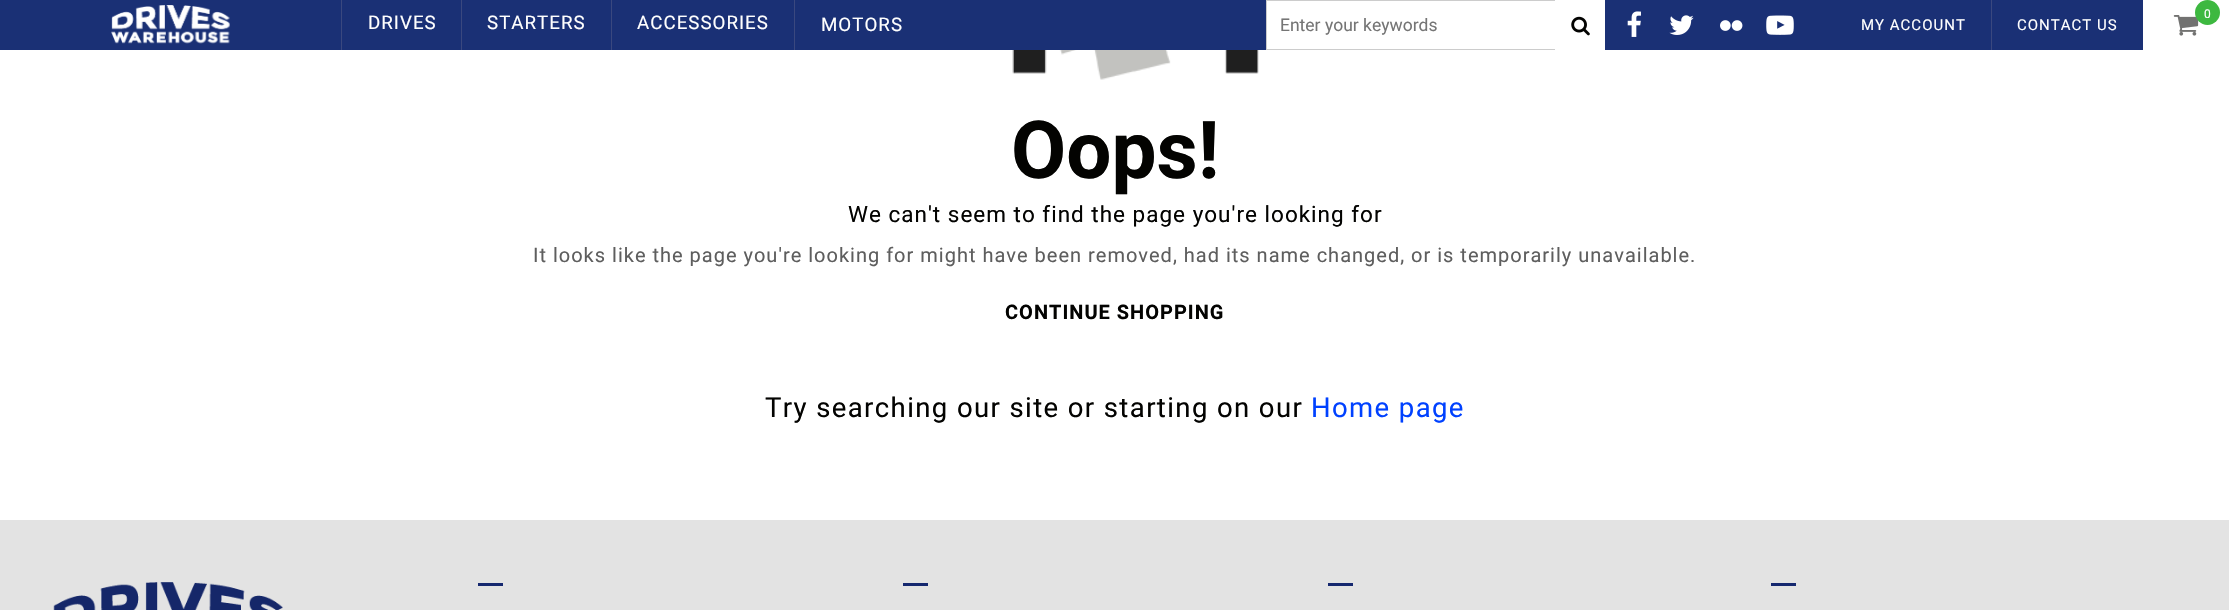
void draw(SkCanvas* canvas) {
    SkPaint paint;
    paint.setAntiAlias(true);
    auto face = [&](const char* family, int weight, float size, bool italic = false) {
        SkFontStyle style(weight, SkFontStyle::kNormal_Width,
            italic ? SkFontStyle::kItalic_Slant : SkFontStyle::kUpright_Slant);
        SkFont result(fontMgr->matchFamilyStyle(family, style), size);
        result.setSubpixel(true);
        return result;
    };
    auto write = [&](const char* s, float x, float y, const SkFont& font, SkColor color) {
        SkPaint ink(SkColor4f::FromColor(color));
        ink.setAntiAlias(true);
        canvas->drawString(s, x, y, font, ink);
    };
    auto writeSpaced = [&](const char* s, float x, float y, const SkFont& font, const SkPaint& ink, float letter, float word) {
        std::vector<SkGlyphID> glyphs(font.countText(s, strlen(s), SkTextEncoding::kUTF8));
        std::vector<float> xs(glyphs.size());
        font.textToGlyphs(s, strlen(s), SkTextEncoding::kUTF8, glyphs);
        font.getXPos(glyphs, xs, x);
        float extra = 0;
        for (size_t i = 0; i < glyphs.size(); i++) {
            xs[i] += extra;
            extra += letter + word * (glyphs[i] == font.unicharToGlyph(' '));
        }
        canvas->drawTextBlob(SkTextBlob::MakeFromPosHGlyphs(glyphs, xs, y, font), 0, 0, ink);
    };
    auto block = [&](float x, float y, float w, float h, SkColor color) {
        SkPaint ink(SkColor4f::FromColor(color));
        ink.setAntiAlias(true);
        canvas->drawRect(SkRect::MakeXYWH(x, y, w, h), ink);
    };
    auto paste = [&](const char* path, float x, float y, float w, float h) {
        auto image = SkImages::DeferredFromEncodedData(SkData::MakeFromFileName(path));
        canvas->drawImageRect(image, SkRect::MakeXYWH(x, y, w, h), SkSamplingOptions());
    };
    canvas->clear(SkColorSetRGB(227, 227, 227));
    block(0, 0, 2143, 50, SkColorSetRGB(26, 48, 117));
    paste("pic1.png", 111, 5, 119, 39);
    block(341, 0, 1, 50, SkColorSetRGB(58, 72, 127));
    auto kFont1 = face("Roboto", 400, 18.75f);
    paint.setColor(SK_ColorWHITE);
    writeSpaced("DRIVES", 368, 29, kFont1, paint, 1, 0);
    block(461, 0, 1, 50, SkColorSetRGB(58, 72, 127));
    writeSpaced("STARTERS", 487, 29, kFont1, paint, 1, 0);
    block(611, 0, 1, 50, SkColorSetRGB(58, 72, 127));
    writeSpaced("ACCESSORIES", 637, 29, kFont1, paint, 1, 0);
    block(794, 0, 1, 50, SkColorSetRGB(58, 72, 127));
    writeSpaced("MOTORS", 821, 31, kFont1, paint, 1, 0);
    block(1267, 1, 288, 48, SK_ColorWHITE);
    paint.setStyle(SkPaint::kStroke_Style);
    paint.setStrokeWidth(1);
    paint.setColor(SkColorSetRGB(204, 204, 204));
    canvas->drawRect(SkRect::MakeXYWH(1266.5f, 0.5f, 338, 49), paint);
    auto kFont2 = face("Roboto", 400, 17.5f);
    write("Enter your keywords", 1280, 31, kFont2, SkColorSetRGB(117, 117, 117));
    block(1555, 0, 50, 50, SK_ColorWHITE);
    paste("pic2.png", 1571, 16, 19, 20);
    paste("pic3.png", 1627, 11, 14, 26);
    paste("pic4.png", 1669, 15, 25, 20);
    paste("pic5.png", 1720, 20, 23, 11);
    paste("pic6.png", 1766, 15, 28, 20);
    block(2143, 0, 86, 50, SK_ColorWHITE);
    paste("pic7.png", 2173, 15, 26, 21);
    paint.setStyle(SkPaint::kFill_Style);
    paint.setColor(SkColorSetRGB(61, 184, 64));
    canvas->drawCircle(2207.5f, 12.5f, 12.5f, paint);
    auto kFont3 = face("Roboto", 400, 12);
    paint.setColor(SK_ColorWHITE);
    writeSpaced("0", 2204, 18, kFont3, paint, 1, 0);
    auto kFont4 = face("Roboto", 400, 15);
    writeSpaced("MY ACCOUNT", 1861, 30, kFont4, paint, 1, 0);
    block(1991, 0, 1, 50, SkColorSetRGB(58, 72, 127));
    writeSpaced("CONTACT US", 2017, 30, kFont4, paint, 1, 0);
    block(0, 50, 2229, 470, SK_ColorWHITE);
    paste("pic8.png", 1012, 50, 247, 30);
    auto kFont5 = face("Roboto", 700, 80);
    write("Oops!", 1011, 178, kFont5, SkColorSetRGB(3, 3, 1));
    auto kFont6 = face("Roboto", 400, 22.5f);
    paint.setColor(SkColorSetRGB(3, 3, 1));
    writeSpaced("We can't seem to find the page you're looking for", 848, 222, kFont6, paint, 1, 0);
    auto kFont7 = face("Roboto", 400, 20);
    paint.setColor(SkColorSetRGB(94, 94, 94));
    writeSpaced("It looks like the page you're looking for might have been removed, had its name changed, or is temporarily unavailable.", 533, 262, kFont7, paint, 1, 0);
    auto kFont8 = face("Roboto", 700, 20);
    paint.setColor(SkColorSetRGB(3, 3, 1));
    writeSpaced("CONTINUE SHOPPING", 1005, 319, kFont8, paint, 1, 0);
    auto kFont9 = face("Roboto", 400, 27.5f);
    writeSpaced("Try searching our site or starting on our", 765, 417, kFont9, paint, 1.4f, 0);
    paint.setColor(SkColorSetRGB(0, 65, 255));
    writeSpaced("Home page", 1311, 417, kFont9, paint, 1.4f, 0);
    paste("pic9.png", 53, 582, 230, 28);
    block(478, 583, 25, 3, SkColorSetRGB(21, 40, 111));
    block(903, 583, 25, 3, SkColorSetRGB(21, 40, 111));
    block(1328, 583, 25, 3, SkColorSetRGB(21, 40, 111));
    block(1771, 583, 25, 3, SkColorSetRGB(21, 40, 111));
}
